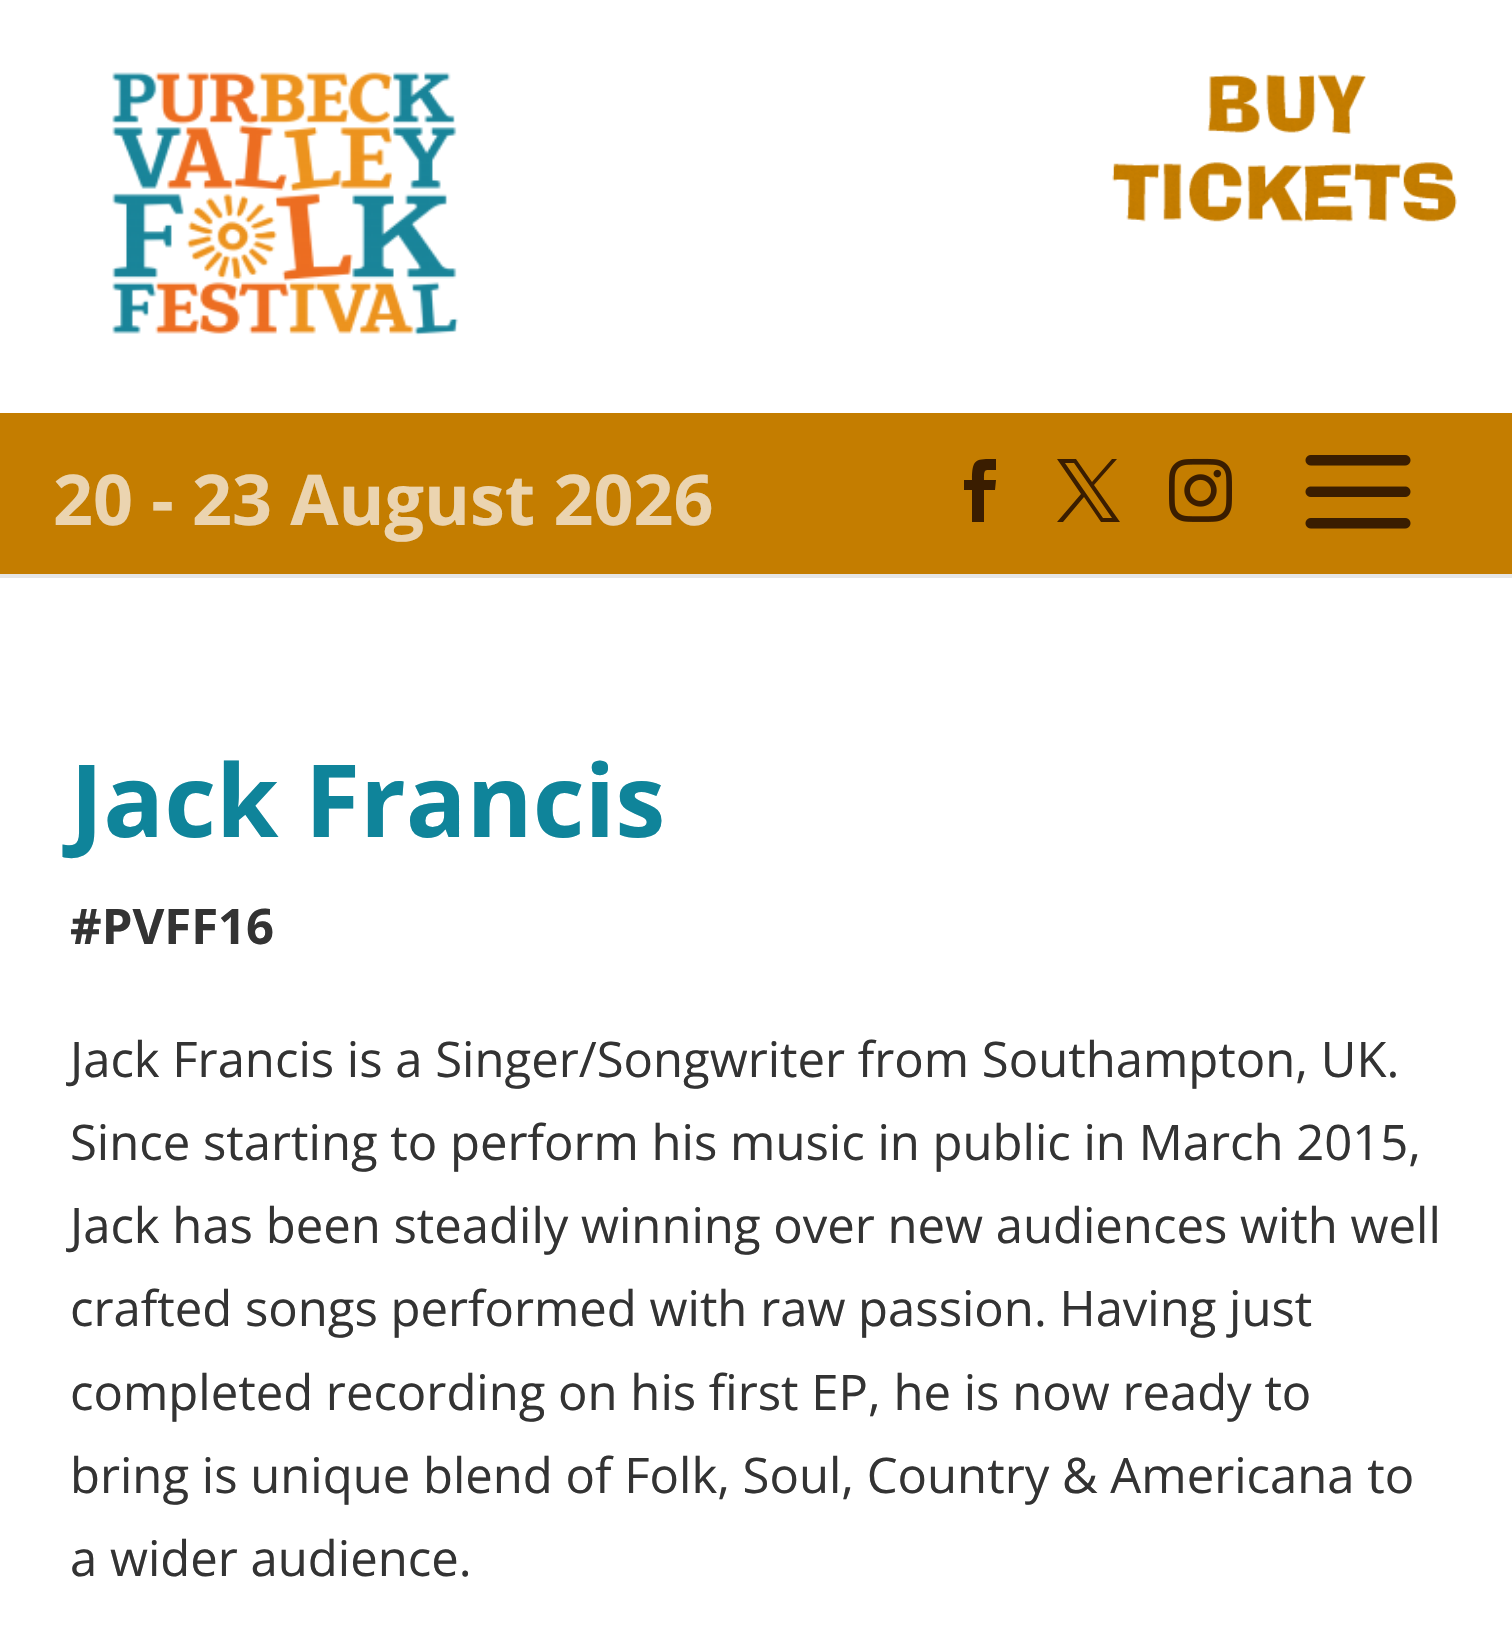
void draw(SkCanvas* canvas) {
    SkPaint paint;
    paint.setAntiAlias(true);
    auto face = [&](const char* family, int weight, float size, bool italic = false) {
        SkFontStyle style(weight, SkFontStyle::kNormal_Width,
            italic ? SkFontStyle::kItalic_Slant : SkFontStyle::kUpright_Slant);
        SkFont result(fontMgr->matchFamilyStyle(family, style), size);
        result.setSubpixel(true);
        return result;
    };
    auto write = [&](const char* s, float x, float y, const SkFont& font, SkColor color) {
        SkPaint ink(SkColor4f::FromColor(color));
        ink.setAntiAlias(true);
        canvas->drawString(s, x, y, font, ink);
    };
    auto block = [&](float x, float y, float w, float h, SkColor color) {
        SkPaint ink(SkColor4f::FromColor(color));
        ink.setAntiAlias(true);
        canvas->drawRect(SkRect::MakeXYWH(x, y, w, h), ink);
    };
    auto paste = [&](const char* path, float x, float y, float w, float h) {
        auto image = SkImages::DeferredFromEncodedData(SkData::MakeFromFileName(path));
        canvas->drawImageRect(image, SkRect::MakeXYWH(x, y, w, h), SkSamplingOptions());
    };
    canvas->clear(SK_ColorWHITE);
    block(0, 574, 1512, 4, SkColorSetRGB(230, 230, 230));
    paste("pic1.png", 112, 72, 347, 264);
    paste("pic2.png", 1112, 74, 345, 148);
    block(0, 413, 1512, 161, SkColorSetRGB(196, 125, 0));
    paste("pic3.png", 1305, 455, 106, 74);
    auto kFont1 = face("Open Sans", 700, 70);
    write("20 - 23 August 2026", 53, 525, kFont1, SkColorSetRGB(235, 212, 176));
    paint.setColor(SkColorSetRGB(58, 29, 0));
    canvas->drawPath(SkPathBuilder().moveTo(972, 522).lineTo(984, 522).lineTo(984, 490).lineTo(995, 490).lineTo(996, 480).lineTo(984, 480).cubicTo(984, 468, 984, 470, 996, 470).lineTo(996, 459).cubicTo(976, 459, 972, 458, 972, 480).lineTo(964, 480).lineTo(964, 490).lineTo(972, 490).close().detach(), paint);
    canvas->drawPath(SkPathBuilder().moveTo(1057, 459).lineTo(1081, 494).lineTo(1057, 522).lineTo(1063, 522).lineTo(1084, 497).lineTo(1101, 522).lineTo(1120, 522).lineTo(1094, 485).lineTo(1117, 459).lineTo(1112, 459).lineTo(1092, 482).lineTo(1076, 459).close().moveTo(1065, 463).lineTo(1074, 463).lineTo(1112, 518).lineTo(1103, 518).close().detach(), paint);
    paste("pic4.png", 1169, 458, 63, 64);
    auto kFont2 = face("Open Sans", 700, 100.75f);
    write("Jack Francis", 70, 837, kFont2, SkColorSetRGB(15, 132, 154));
    auto kFont3 = face("Open Sans", 700, 49);
    write("#PVFF16", 70, 944, kFont3, SkColorSetRGB(51, 51, 51));
    auto kFont4 = face("Open Sans", 400, 49);
    write("Jack Francis is a Singer/Songwriter from Southampton, UK.", 70, 1077, kFont4, SkColorSetRGB(51, 51, 51));
    write("Since starting to perform his music in public in March 2015,", 70, 1160, kFont4, SkColorSetRGB(51, 51, 51));
    write("Jack has been steadily winning over new audiences with well", 70, 1243, kFont4, SkColorSetRGB(51, 51, 51));
    write("crafted songs performed with raw passion. Having just", 70, 1326, kFont4, SkColorSetRGB(51, 51, 51));
    write("completed recording on his first EP, he is now ready to", 70, 1410, kFont4, SkColorSetRGB(51, 51, 51));
    write("bring is unique blend of Folk, Soul, Country & Americana to", 70, 1493, kFont4, SkColorSetRGB(51, 51, 51));
    write("a wider audience.", 70, 1576, kFont4, SkColorSetRGB(51, 51, 51));
}
